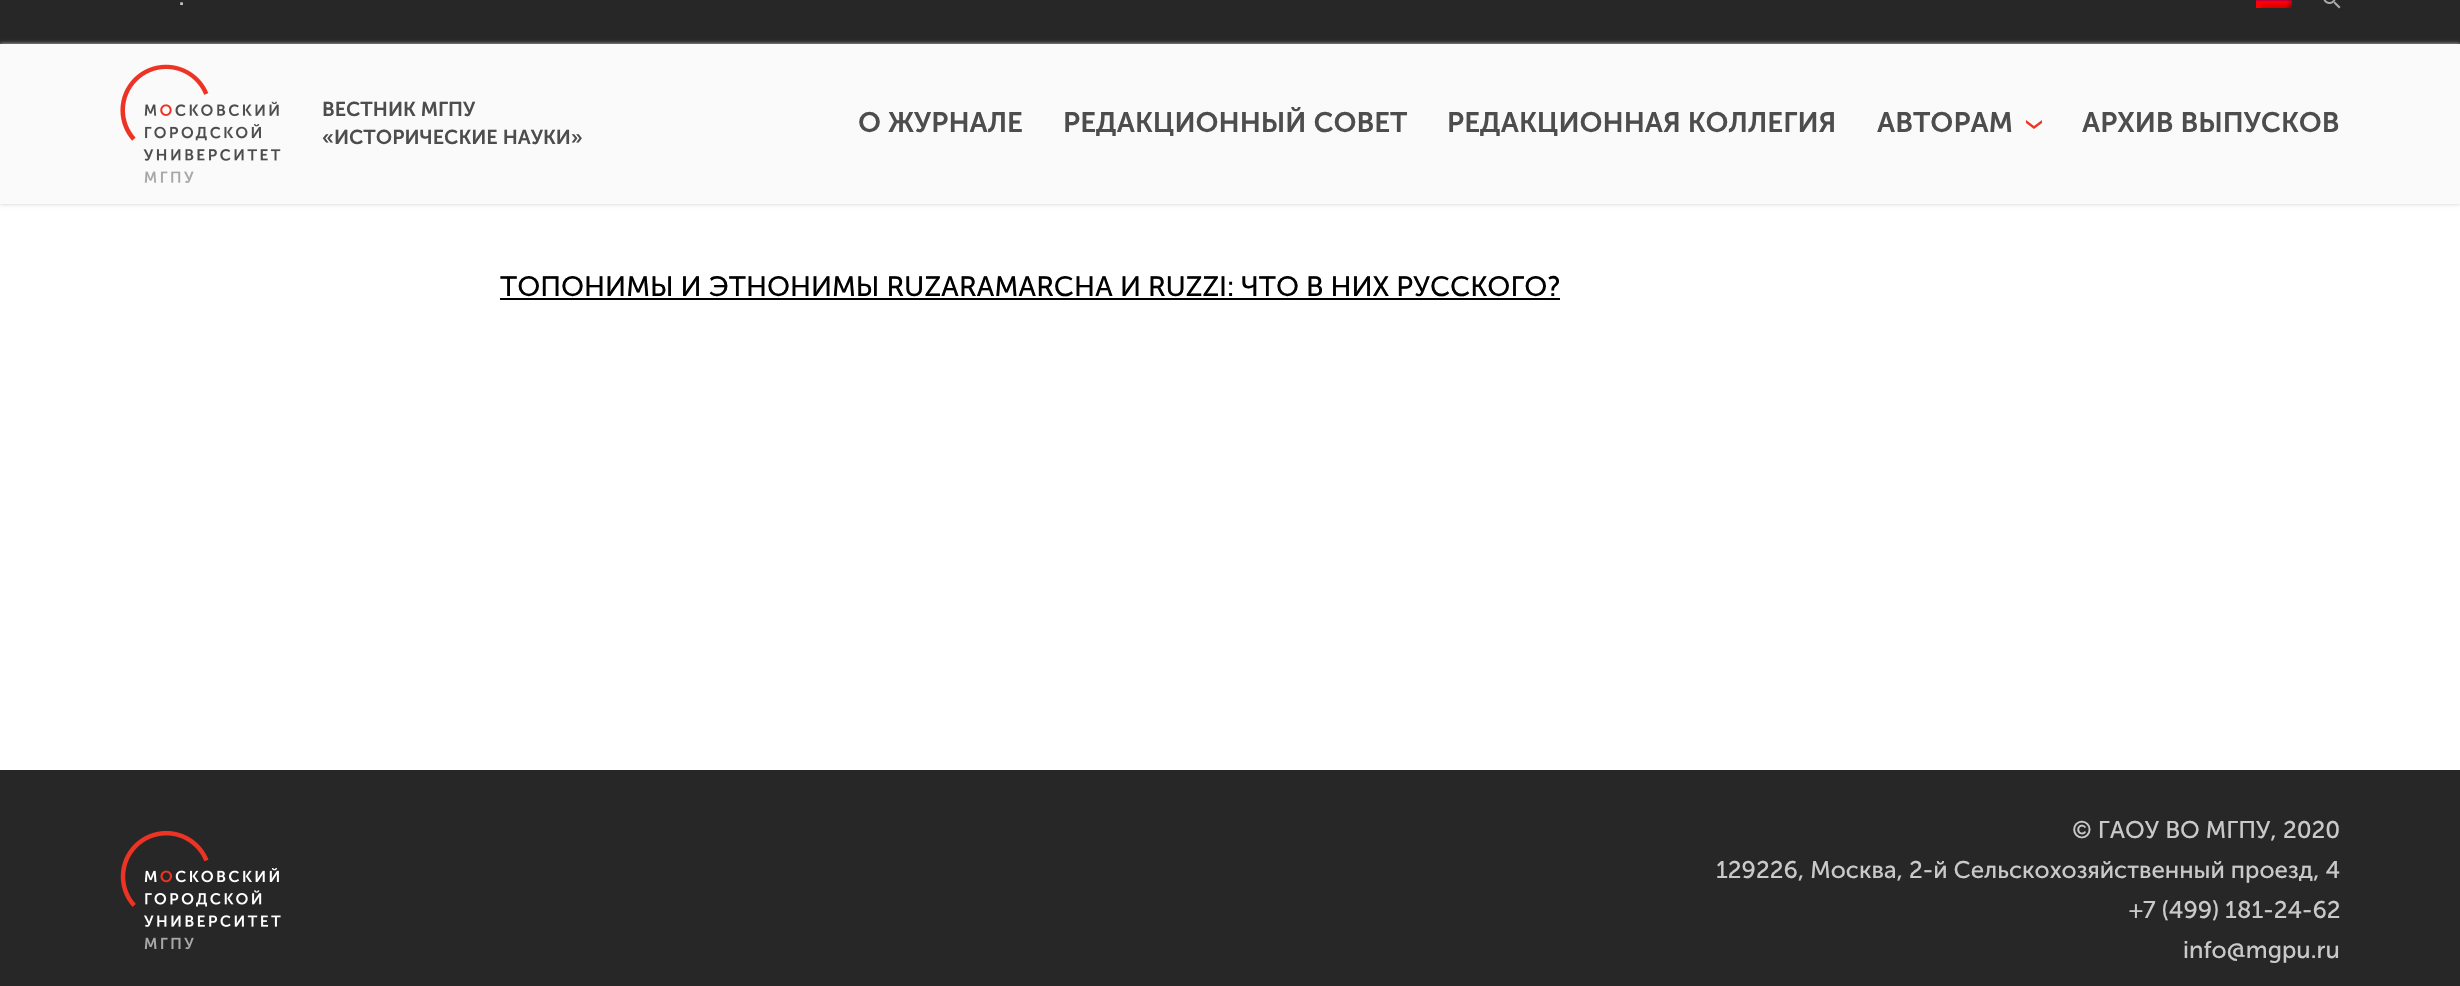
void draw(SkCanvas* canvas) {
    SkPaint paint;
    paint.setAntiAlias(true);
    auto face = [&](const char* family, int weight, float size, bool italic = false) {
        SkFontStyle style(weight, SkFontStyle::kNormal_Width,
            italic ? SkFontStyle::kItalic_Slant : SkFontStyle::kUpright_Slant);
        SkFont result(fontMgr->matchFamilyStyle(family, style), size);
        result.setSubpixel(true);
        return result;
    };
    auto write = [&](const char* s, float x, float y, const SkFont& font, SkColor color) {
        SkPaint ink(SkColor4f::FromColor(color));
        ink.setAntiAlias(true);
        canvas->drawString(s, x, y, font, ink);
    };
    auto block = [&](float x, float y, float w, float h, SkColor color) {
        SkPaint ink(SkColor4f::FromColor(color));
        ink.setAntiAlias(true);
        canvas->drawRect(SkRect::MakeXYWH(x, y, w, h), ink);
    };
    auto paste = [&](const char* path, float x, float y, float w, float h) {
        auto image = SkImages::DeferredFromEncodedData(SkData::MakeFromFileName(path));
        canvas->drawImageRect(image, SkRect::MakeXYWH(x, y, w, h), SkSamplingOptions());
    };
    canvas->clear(SK_ColorWHITE);
    block(0, 0, 2460, 44, SkColorSetRGB(39, 39, 39));
    auto kFont1 = face("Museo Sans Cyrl", 600, 20);
    write(".", 179, 5, kFont1, SkColorSetRGB(201, 201, 201));
    paste("pic1.png", 2256, 0, 36, 8);
    paste("pic2.png", 2323, 0, 18, 9);
    paint.setColor(SkColorSetRGB(204, 204, 204));
    paint.setMaskFilter(SkMaskFilter::MakeBlur(kNormal_SkBlurStyle, 2));
    canvas->drawRect(SkRect::MakeXYWH(0, 44, 2460, 160), paint);
    paint.setMaskFilter(nullptr);
    block(0, 44, 2460, 160, SkColorSetRGB(250, 250, 250));
    paste("pic3.png", 120, 64, 161, 119);
    write("ВЕСТНИК МГПУ", 322, 116, kFont1, SkColorSetRGB(77, 77, 77));
    write("«ИСТОРИЧЕСКИЕ НАУКИ»", 322, 144, kFont1, SkColorSetRGB(77, 77, 77));
    auto kFont2 = face("Museo Sans Cyrl", 600, 28);
    write("О ЖУРНАЛЕ", 858, 132, kFont2, SkColorSetRGB(77, 77, 77));
    write("РЕДАКЦИОННЫЙ СОВЕТ", 1063, 132, kFont2, SkColorSetRGB(77, 77, 77));
    write("РЕДАКЦИОННАЯ КОЛЛЕГИЯ", 1447, 132, kFont2, SkColorSetRGB(77, 77, 77));
    write("АВТОРАМ", 1877, 132, kFont2, SkColorSetRGB(77, 77, 77));
    paste("pic4.png", 2026, 120, 16, 9);
    write("АРХИВ ВЫПУСКОВ", 2082, 132, kFont2, SkColorSetRGB(77, 77, 77));
    auto kFont3 = face("Museo Sans Cyrl", 400, 28);
    write("ТОПОНИМЫ И ЭТНОНИМЫ RUZARAMARCHA И RUZZI: ЧТО В НИХ РУССКОГО?", 500, 296, kFont3, SK_ColorBLACK);
    block(500, 298, 1060, 2, SK_ColorBLACK);
    block(0, 770, 2460, 216, SkColorSetRGB(39, 39, 39));
    paste("pic5.png", 120, 830, 161, 120);
    auto kFont4 = face("Museo Sans Cyrl", 400, 24);
    write("© ГАОУ ВО МГПУ, 2020", 2072, 838, kFont4, SkColorSetRGB(201, 201, 201));
    write("129226, Москва, 2-й Сельскохозяйственный проезд, 4", 1716, 878, kFont4, SkColorSetRGB(201, 201, 201));
    write("+7 (499) 181-24-62", 2129, 918, kFont4, SkColorSetRGB(201, 201, 201));
    write("info@mgpu.ru", 2183, 958, kFont4, SkColorSetRGB(201, 201, 201));
}
